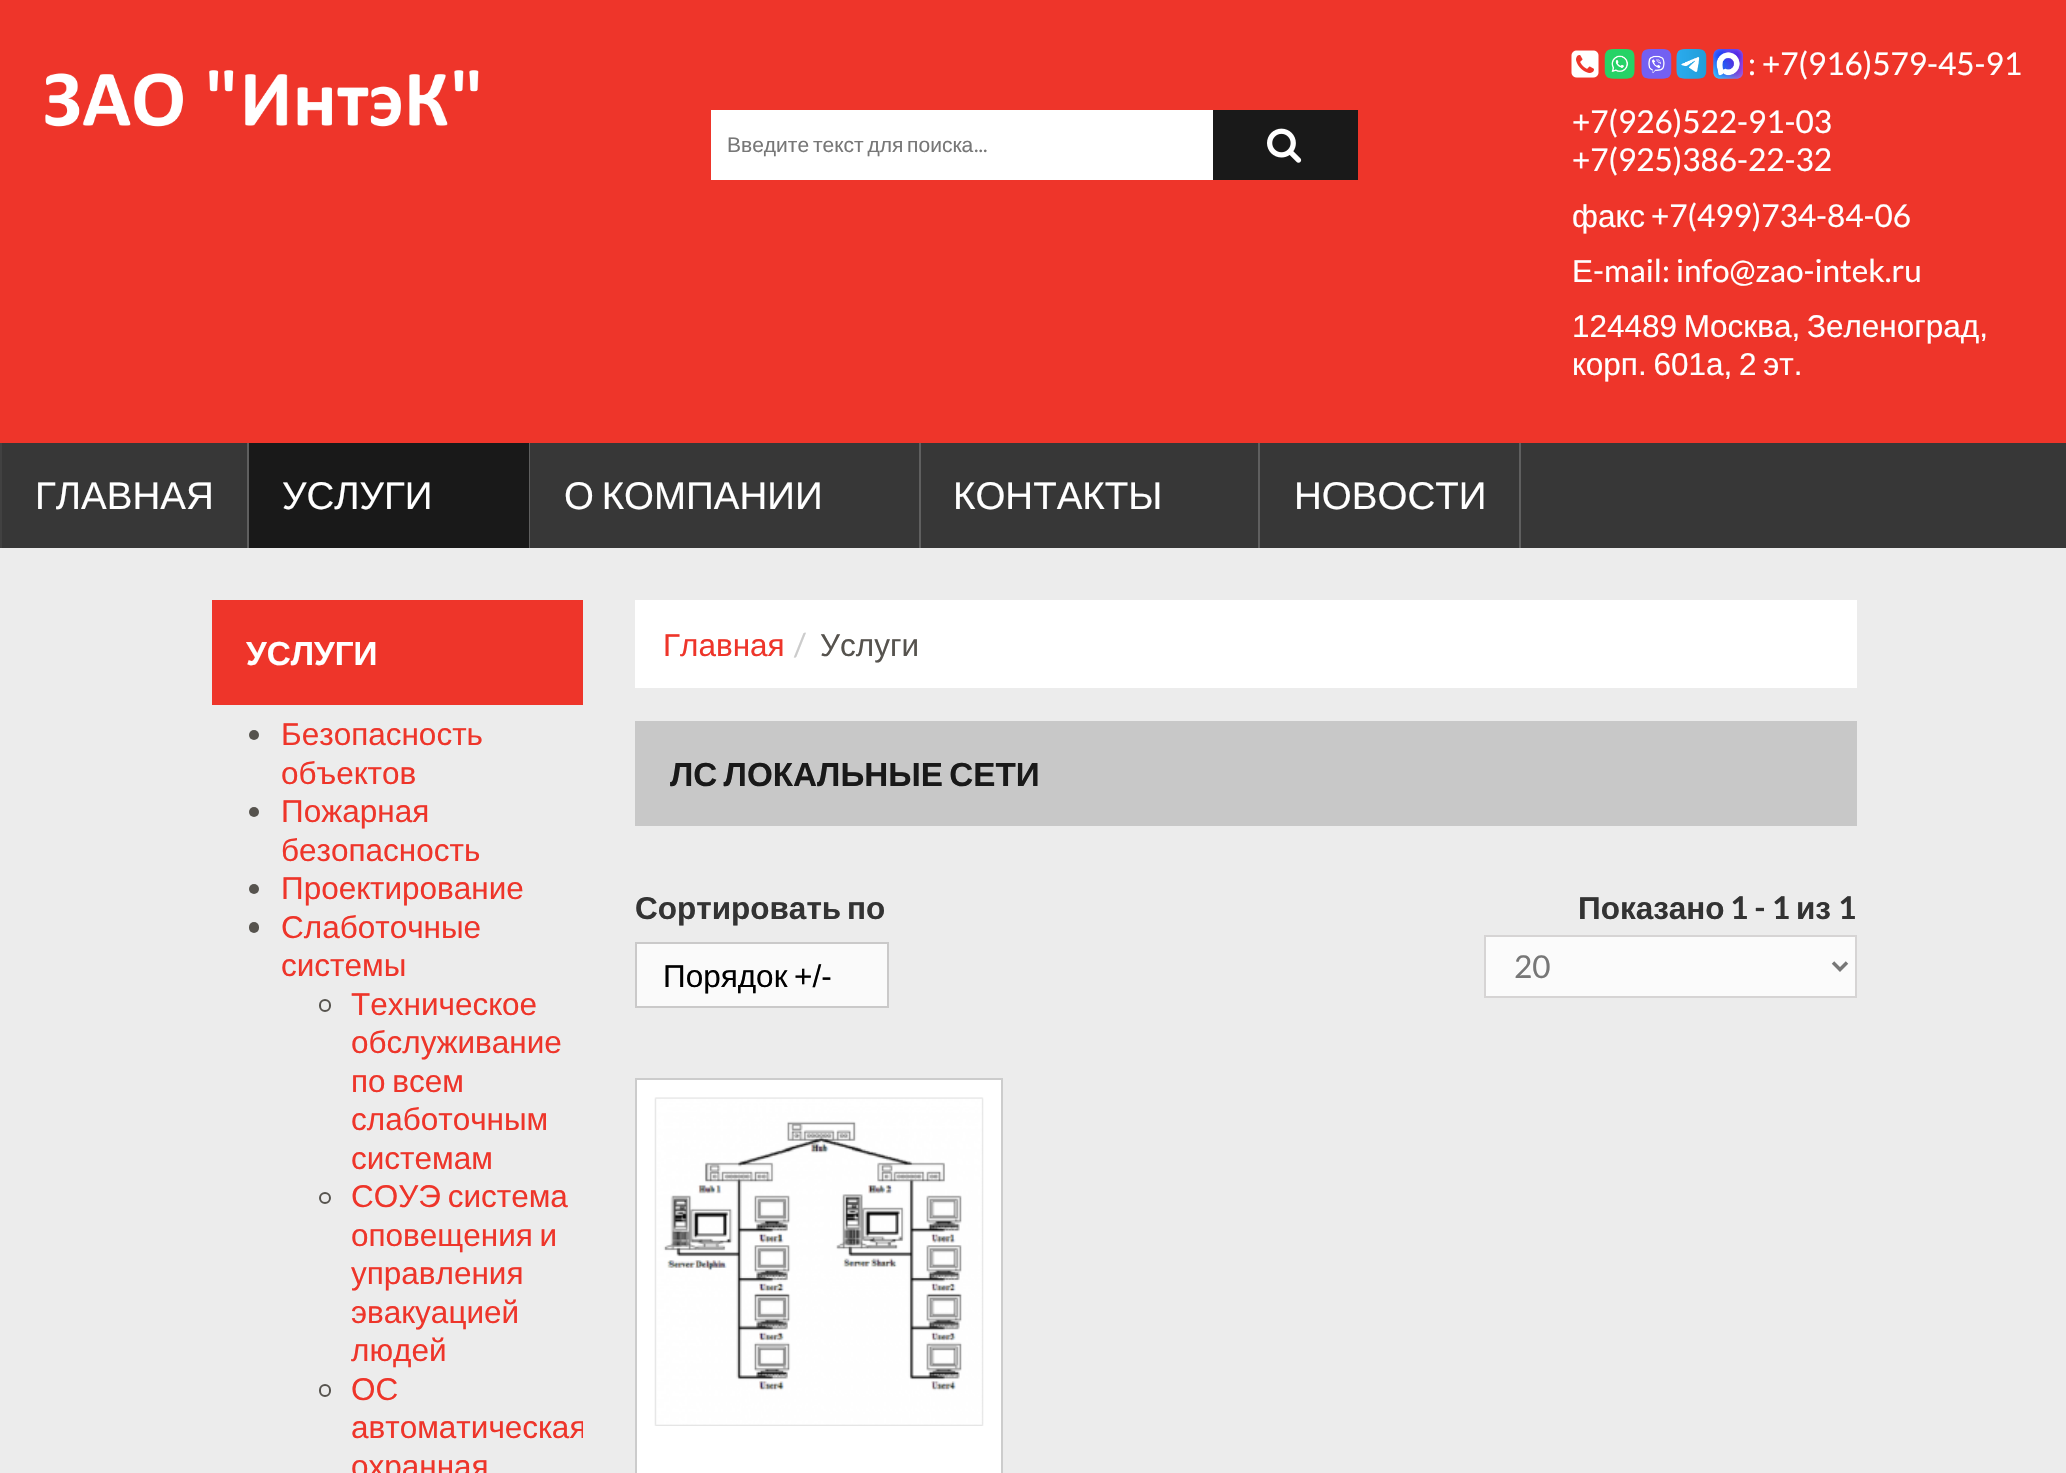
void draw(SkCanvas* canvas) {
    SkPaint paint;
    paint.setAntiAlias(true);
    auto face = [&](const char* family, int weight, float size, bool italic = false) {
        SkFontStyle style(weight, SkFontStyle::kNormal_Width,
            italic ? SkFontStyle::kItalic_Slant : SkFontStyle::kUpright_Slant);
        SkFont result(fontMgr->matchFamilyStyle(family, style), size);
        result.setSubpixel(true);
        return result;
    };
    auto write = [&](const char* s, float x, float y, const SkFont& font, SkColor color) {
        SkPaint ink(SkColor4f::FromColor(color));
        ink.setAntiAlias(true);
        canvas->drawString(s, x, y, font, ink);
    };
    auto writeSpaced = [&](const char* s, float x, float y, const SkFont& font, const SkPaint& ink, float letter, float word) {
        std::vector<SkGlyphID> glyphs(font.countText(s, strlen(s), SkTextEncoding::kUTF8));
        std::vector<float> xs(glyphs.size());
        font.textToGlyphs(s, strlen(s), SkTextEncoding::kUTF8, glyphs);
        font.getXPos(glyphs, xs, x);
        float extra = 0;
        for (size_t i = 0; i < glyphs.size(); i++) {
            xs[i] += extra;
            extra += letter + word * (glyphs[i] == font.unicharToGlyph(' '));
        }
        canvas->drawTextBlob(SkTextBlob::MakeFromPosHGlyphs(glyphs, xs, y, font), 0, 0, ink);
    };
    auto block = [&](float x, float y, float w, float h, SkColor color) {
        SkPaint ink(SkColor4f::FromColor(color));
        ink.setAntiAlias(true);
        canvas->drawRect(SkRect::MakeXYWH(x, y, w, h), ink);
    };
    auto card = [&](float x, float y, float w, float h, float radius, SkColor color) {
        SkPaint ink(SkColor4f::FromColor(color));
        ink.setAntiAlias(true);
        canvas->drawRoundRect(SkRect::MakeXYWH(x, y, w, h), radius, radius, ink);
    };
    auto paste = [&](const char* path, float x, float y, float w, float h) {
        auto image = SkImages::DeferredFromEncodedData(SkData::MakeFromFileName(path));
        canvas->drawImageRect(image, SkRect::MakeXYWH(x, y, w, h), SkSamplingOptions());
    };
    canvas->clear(SkColorSetRGB(236, 236, 236));
    block(0, 0, 2066, 443, SkColorSetRGB(238, 53, 42));
    paste("pic1.png", 45, 70, 434, 57);
    paste("pic2.png", 1571, 50, 28, 28);
    paste("pic3.png", 1604, 49, 31, 30);
    paste("pic4.png", 1641, 49, 31, 30);
    paste("pic5.png", 1676, 49, 31, 30);
    paste("pic6.png", 1713, 49, 30, 30);
    auto kFont1 = face("Lato", 400, 31.5f);
    write(": +7(916)579-45-91", 1748, 75, kFont1, SK_ColorWHITE);
    write("+7(926)522-91-03", 1572, 133, kFont1, SK_ColorWHITE);
    write("+7(925)386-22-32", 1572, 171, kFont1, SK_ColorWHITE);
    auto kFont2 = face("Liberation Sans", 400, 31.5f);
    write("факс", 1572, 227, kFont2, SK_ColorWHITE);
    write("+7(499)734-84-06", 1651, 227, kFont1, SK_ColorWHITE);
    write("Е", 1572, 282, kFont2, SK_ColorWHITE);
    write("-mail: info@zao-intek.ru", 1593, 282, kFont1, SK_ColorWHITE);
    paint.setColor(SK_ColorWHITE);
    writeSpaced("124489 Москва, Зеленоград,", 1572, 337, kFont2, paint, 0, -2);
    writeSpaced("корп. 601а, 2 эт.", 1572, 375, kFont2, paint, 0, -2);
    block(711, 110, 502, 70, SK_ColorWHITE);
    auto kFont3 = face("Liberation Sans", 400, 21);
    paint.setColor(SkColorSetRGB(119, 119, 119));
    writeSpaced("Введите текст для поиска", 727, 152, kFont3, paint, 0, -2);
    auto kFont4 = face("Lato", 400, 21);
    write("...", 974, 152, kFont4, SkColorSetRGB(119, 119, 119));
    block(1213, 110, 145, 70, SkColorSetRGB(25, 25, 25));
    paste("pic7.png", 1267, 128, 35, 35);
    block(2, 443, 2064, 105, SkColorSetRGB(55, 55, 55));
    block(247, 443, 2, 105, SkColorSetRGB(95, 95, 95));
    block(0, 443, 2, 105, SkColorSetRGB(65, 65, 65));
    auto kFont5 = face("Liberation Sans", 400, 38.5f);
    write("ГЛАВНАЯ", 35, 509, kFont5, SK_ColorWHITE);
    block(529, 443, 1, 105, SkColorSetRGB(95, 95, 95));
    block(249, 443, 280, 105, SkColorSetRGB(25, 25, 25));
    write("УСЛУГИ", 282, 509, kFont5, SK_ColorWHITE);
    block(919, 443, 2, 105, SkColorSetRGB(95, 95, 95));
    paint.setColor(SK_ColorWHITE);
    writeSpaced("О КОМПАНИИ", 564, 509, kFont5, paint, 0, -3);
    block(1258, 443, 2, 105, SkColorSetRGB(95, 95, 95));
    write("КОНТАКТЫ", 953, 509, kFont5, SK_ColorWHITE);
    block(1519, 443, 2, 105, SkColorSetRGB(95, 95, 95));
    write("НОВОСТИ", 1294, 509, kFont5, SK_ColorWHITE);
    block(212, 600, 371, 105, SkColorSetRGB(238, 53, 42));
    auto kFont6 = face("Liberation Sans", 700, 33.25f);
    write("УСЛУГИ", 246, 665, kFont6, SK_ColorWHITE);
    paint.setColor(SkColorSetRGB(86, 83, 78));
    canvas->drawCircle(254, 735, 5, paint);
    write("Безопасность", 281, 745, kFont2, SkColorSetRGB(238, 53, 42));
    write("объектов", 281, 784, kFont2, SkColorSetRGB(238, 53, 42));
    canvas->drawCircle(254, 812, 5, paint);
    write("Пожарная", 281, 822, kFont2, SkColorSetRGB(238, 53, 42));
    write("безопасность", 281, 861, kFont2, SkColorSetRGB(238, 53, 42));
    canvas->drawCircle(254, 889, 5, paint);
    write("Проектирование", 281, 899, kFont2, SkColorSetRGB(238, 53, 42));
    card(249, 922, 10, 11, 5, SkColorSetRGB(86, 83, 78));
    write("Слаботочные", 281, 938, kFont2, SkColorSetRGB(238, 53, 42));
    write("системы", 281, 976, kFont2, SkColorSetRGB(238, 53, 42));
    paint.setStyle(SkPaint::kStroke_Style);
    paint.setStrokeWidth(2);
    canvas->drawRoundRect(SkRect::MakeXYWH(320, 1000, 10, 11), 5, 5, paint);
    write("Техническое", 351, 1015, kFont2, SkColorSetRGB(238, 53, 42));
    write("обслуживание", 351, 1053, kFont2, SkColorSetRGB(238, 53, 42));
    paint.setStyle(SkPaint::kFill_Style);
    paint.setColor(SkColorSetRGB(238, 53, 42));
    writeSpaced("по всем", 351, 1092, kFont2, paint, 0, -2);
    write("слаботочным", 351, 1130, kFont2, SkColorSetRGB(238, 53, 42));
    write("системам", 351, 1169, kFont2, SkColorSetRGB(238, 53, 42));
    paint.setStyle(SkPaint::kStroke_Style);
    paint.setColor(SkColorSetRGB(86, 83, 78));
    canvas->drawCircle(325, 1198, 5, paint);
    paint.setStyle(SkPaint::kFill_Style);
    paint.setColor(SkColorSetRGB(238, 53, 42));
    writeSpaced("СОУЭ система", 351, 1207, kFont2, paint, 0, -2);
    writeSpaced("оповещения и", 351, 1246, kFont2, paint, 0, -2);
    write("управления", 351, 1284, kFont2, SkColorSetRGB(238, 53, 42));
    write("эвакуацией", 351, 1323, kFont2, SkColorSetRGB(238, 53, 42));
    write("людей", 351, 1361, kFont2, SkColorSetRGB(238, 53, 42));
    paint.setStyle(SkPaint::kStroke_Style);
    paint.setColor(SkColorSetRGB(86, 83, 78));
    canvas->drawRoundRect(SkRect::MakeXYWH(320, 1385, 10, 11), 5, 5, paint);
    write("ОС", 351, 1400, kFont2, SkColorSetRGB(238, 53, 42));
    canvas->save();
    canvas->clipRect(SkRect::MakeXYWH(212, 714, 371, 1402));
    write("автоматическая", 351, 1438, kFont2, SkColorSetRGB(238, 53, 42));
    canvas->restore();
    write("охранная", 351, 1477, kFont2, SkColorSetRGB(238, 53, 42));
    block(635, 600, 1222, 88, SK_ColorWHITE);
    write("Главная", 663, 656, kFont2, SkColorSetRGB(238, 53, 42));
    write("/", 794, 656, kFont1, SkColorSetRGB(204, 204, 204));
    write("Услуги", 820, 656, kFont2, SkColorSetRGB(86, 83, 78));
    block(635, 721, 1222, 105, SkColorSetRGB(200, 200, 200));
    paint.setStyle(SkPaint::kFill_Style);
    paint.setColor(SkColorSetRGB(25, 25, 25));
    writeSpaced("ЛС ЛОКАЛЬНЫЕ СЕТИ", 670, 786, kFont6, paint, 0, -3);
    auto kFont7 = face("Liberation Sans", 700, 31.5f);
    paint.setColor(SkColorSetRGB(51, 51, 51));
    writeSpaced("Сортировать по", 635, 919, kFont7, paint, 0, -3);
    paint.setColor(SkColorSetRGB(250, 250, 250));
    canvas->drawRect(SkRect::MakeXYWH(636, 943, 252, 64), paint);
    paint.setStyle(SkPaint::kStroke_Style);
    paint.setColor(SkColorSetRGB(202, 201, 201));
    canvas->drawRect(SkRect::MakeXYWH(636, 943, 252, 64), paint);
    write("Порядок", 663, 987, kFont2, SK_ColorBLACK);
    write("+/-", 794, 987, kFont2, SK_ColorBLACK);
    write("Показано", 1578, 919, kFont7, SkColorSetRGB(51, 51, 51));
    auto kFont8 = face("Lato", 700, 31.5f);
    write("1 - 1", 1730, 919, kFont8, SkColorSetRGB(51, 51, 51));
    write("из", 1796, 919, kFont7, SkColorSetRGB(51, 51, 51));
    write("1", 1838, 919, kFont8, SkColorSetRGB(51, 51, 51));
    paint.setStyle(SkPaint::kFill_Style);
    paint.setColor(SkColorSetRGB(251, 251, 251));
    canvas->drawRect(SkRect::MakeXYWH(1485, 936, 371, 61), paint);
    paint.setStyle(SkPaint::kStroke_Style);
    paint.setColor(SkColorSetRGB(214, 212, 212));
    canvas->drawRect(SkRect::MakeXYWH(1485, 936, 371, 61), paint);
    paint.setStrokeWidth(3.5f);
    paint.setColor(SkColorSetRGB(119, 119, 119));
    canvas->drawPath(SkPathBuilder().moveTo(1833, 962.5f).lineTo(1840, 969.5f).lineTo(1847, 962.5f).detach(), paint);
    write("20", 1514, 978, kFont1, SkColorSetRGB(119, 119, 119));
    paint.setStyle(SkPaint::kFill_Style);
    paint.setColor(SK_ColorWHITE);
    canvas->drawRect(SkRect::MakeXYWH(636, 1079, 366, 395), paint);
    paint.setStyle(SkPaint::kStroke_Style);
    paint.setStrokeWidth(2);
    paint.setColor(SkColorSetRGB(204, 204, 204));
    canvas->drawRect(SkRect::MakeXYWH(636, 1079, 366, 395), paint);
    paste("pic8.png", 654, 1097, 330, 329);
}
